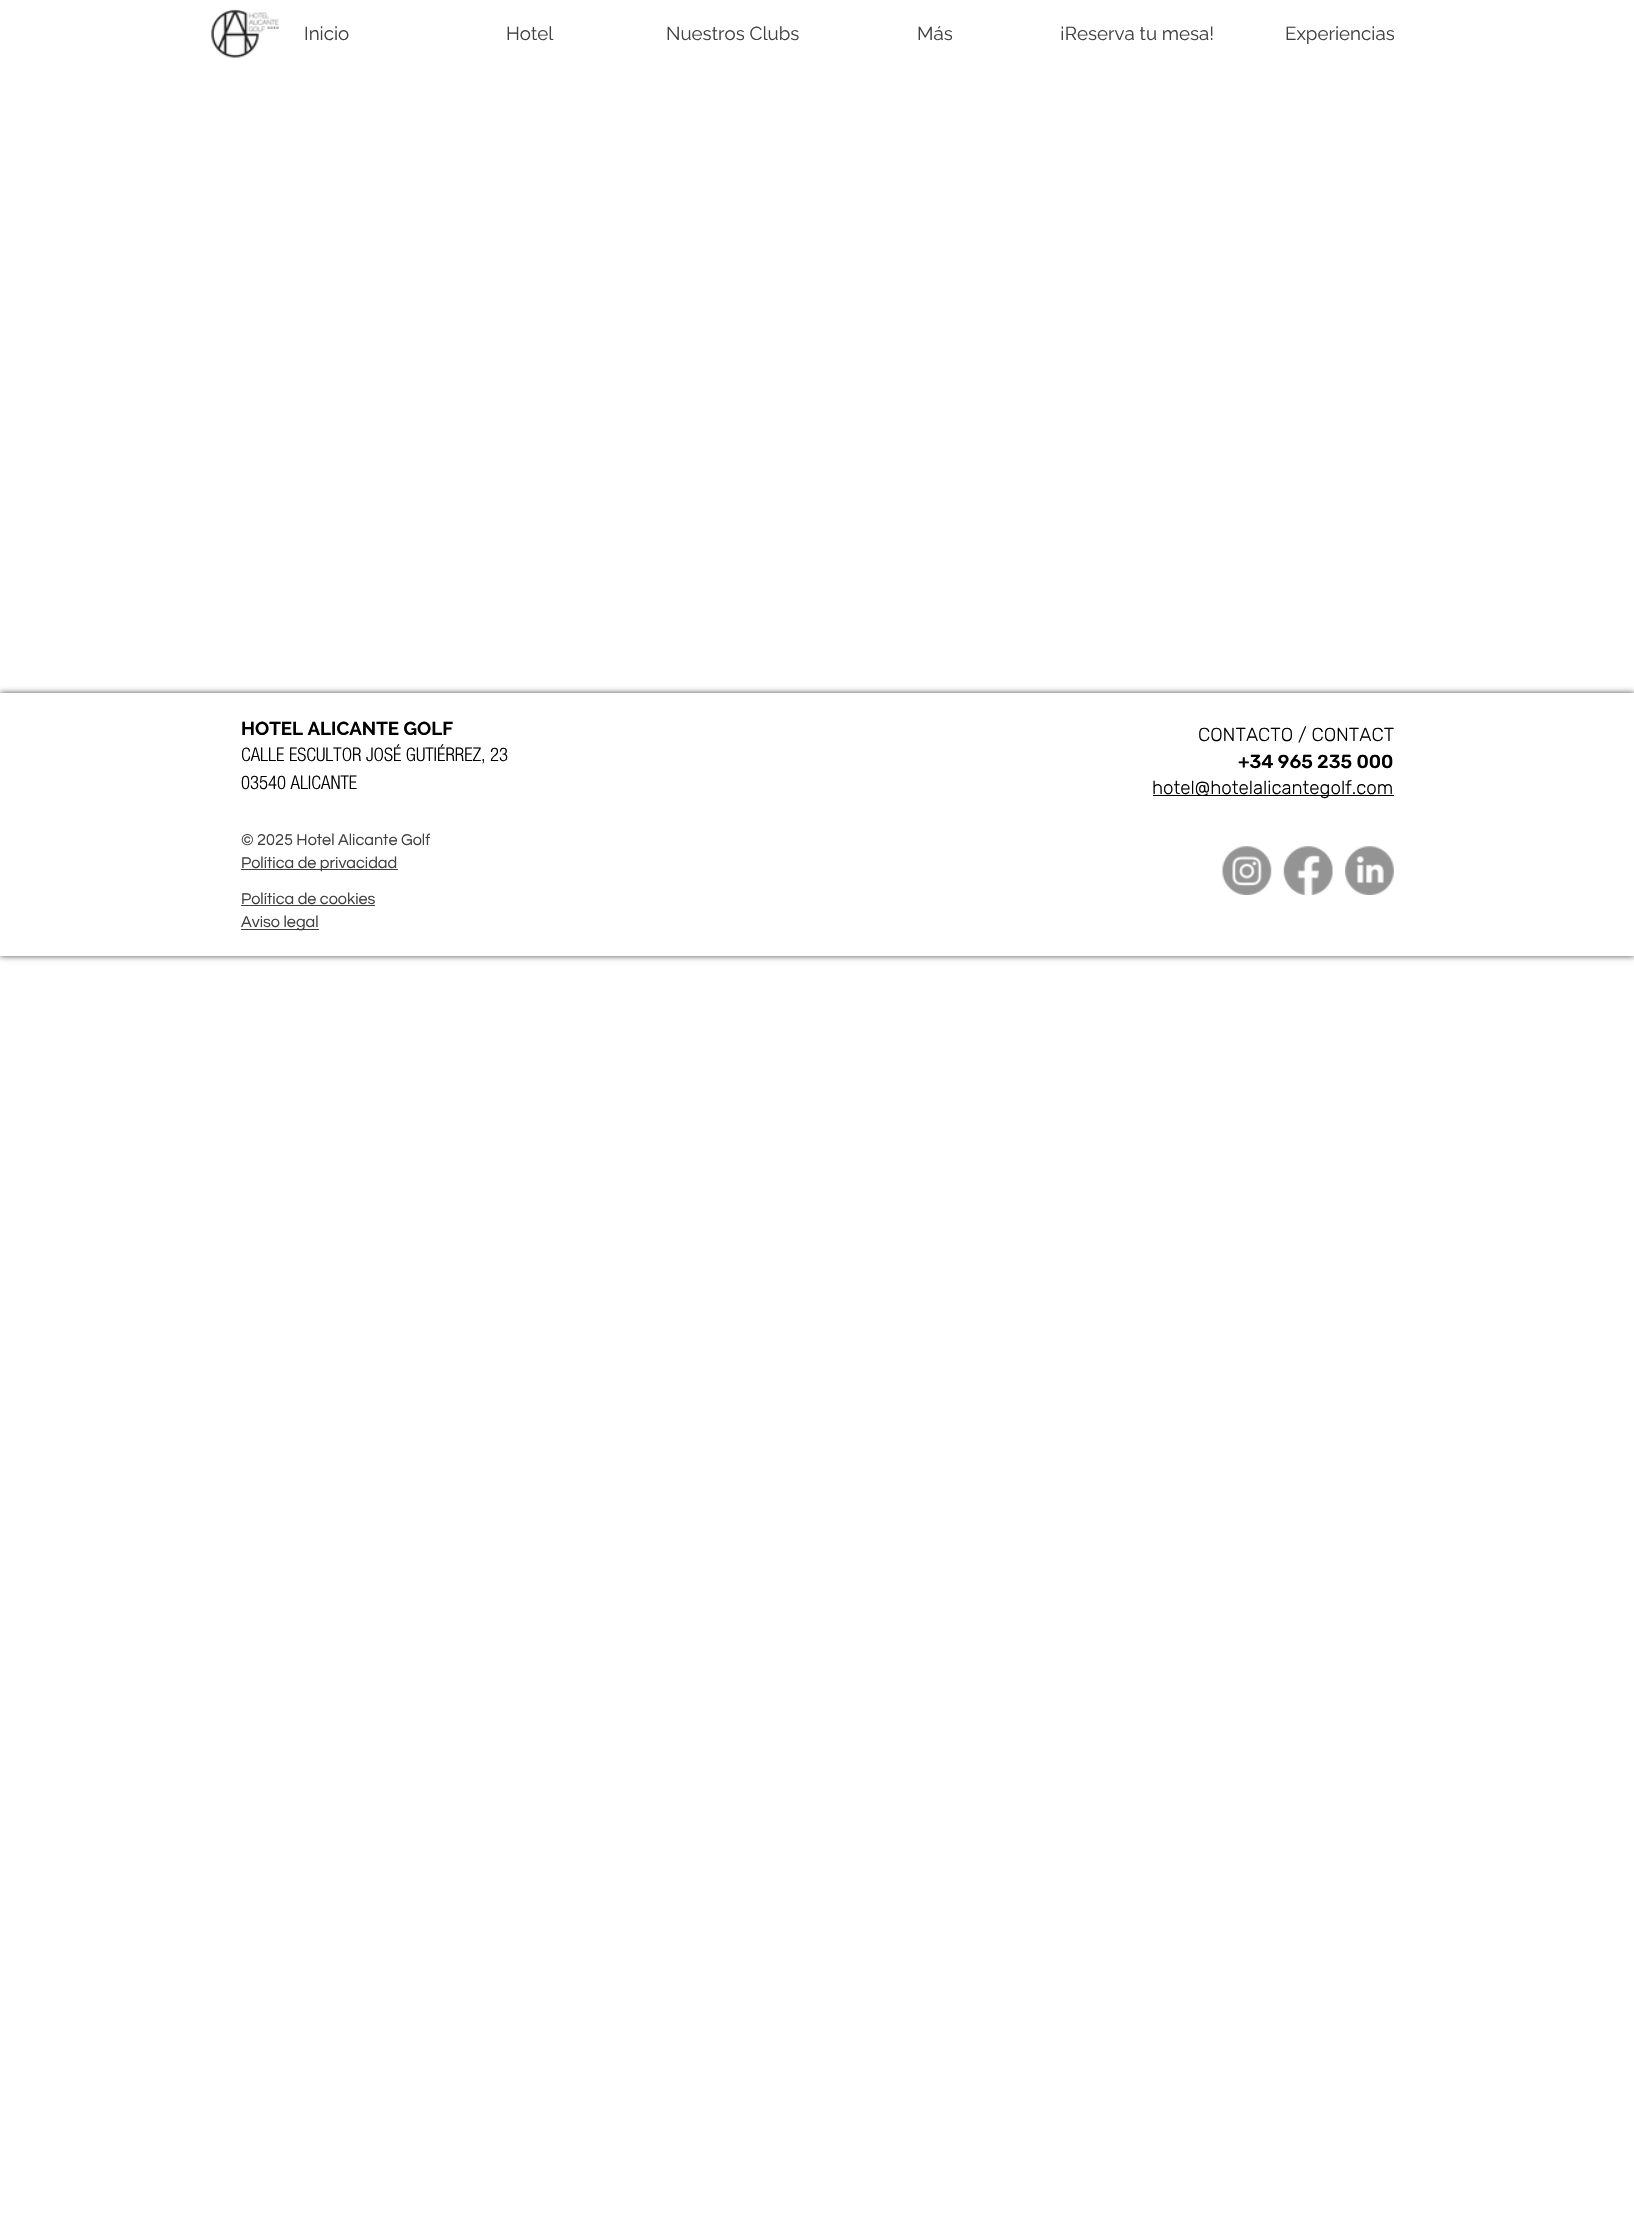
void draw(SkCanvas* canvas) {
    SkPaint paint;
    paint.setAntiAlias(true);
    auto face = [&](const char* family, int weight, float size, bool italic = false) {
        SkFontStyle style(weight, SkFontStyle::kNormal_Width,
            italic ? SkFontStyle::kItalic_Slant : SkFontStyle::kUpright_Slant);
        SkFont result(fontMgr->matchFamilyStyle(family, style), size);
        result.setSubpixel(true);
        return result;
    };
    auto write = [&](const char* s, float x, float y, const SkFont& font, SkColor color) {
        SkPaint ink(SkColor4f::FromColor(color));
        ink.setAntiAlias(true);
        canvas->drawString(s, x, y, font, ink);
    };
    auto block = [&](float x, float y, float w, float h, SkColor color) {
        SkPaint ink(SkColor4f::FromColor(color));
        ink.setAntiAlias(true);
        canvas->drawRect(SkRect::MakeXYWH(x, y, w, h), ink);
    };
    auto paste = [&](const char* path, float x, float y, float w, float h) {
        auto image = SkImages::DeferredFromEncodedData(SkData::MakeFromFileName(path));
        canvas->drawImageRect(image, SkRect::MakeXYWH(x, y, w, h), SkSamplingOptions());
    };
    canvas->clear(SK_ColorWHITE);
    paste("pic1.png", 211, 9, 68, 49);
    auto kFont1 = face("Raleway", 400, 18.75f);
    write("Inicio", 304, 40, kFont1, SkColorSetRGB(64, 64, 64));
    write("Hotel", 506, 40, kFont1, SkColorSetRGB(64, 64, 64));
    write("Nuestros Clubs", 666, 40, kFont1, SkColorSetRGB(64, 64, 64));
    write("Más", 917, 40, kFont1, SkColorSetRGB(64, 64, 64));
    write("¡Reserva tu mesa!", 1060, 40, kFont1, SkColorSetRGB(64, 64, 64));
    write("Experiencias", 1285, 40, kFont1, SkColorSetRGB(64, 64, 64));
    canvas->save();
    canvas->clipPath(SkPathBuilder(SkPathFillType::kEvenOdd).moveTo(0, 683).lineTo(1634, 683).lineTo(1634, 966).lineTo(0, 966).close().moveTo(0, 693).lineTo(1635, 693).lineTo(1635, 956).lineTo(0, 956).close().detach(), true);
    paint.setColor(SkColorSetARGB(179, 0, 0, 0));
    paint.setMaskFilter(SkMaskFilter::MakeBlur(kNormal_SkBlurStyle, 3));
    canvas->drawRect(SkRect::MakeXYWH(0, 693, 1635, 263), paint);
    paint.setMaskFilter(nullptr);
    canvas->restore();
    auto kFont2 = face("Raleway", 700, 18.75f);
    write("HOTEL ALICANTE GOLF", 241, 735, kFont2, SK_ColorBLACK);
    auto kFont3 = face("Helvetica Neue", 300, 18.75f);
    write("CALLE ESCULTOR JOSÉ GUTIÉRREZ, 23", 241, 761, kFont3, SK_ColorBLACK);
    write("03540 ALICANTE", 241, 789, kFont3, SK_ColorBLACK);
    auto kFont4 = face("Rubik", 300, 18.75f);
    write("CONTACTO / CONTACT", 1198, 741, kFont4, SK_ColorBLACK);
    auto kFont5 = face("Rubik", 500, 18.75f);
    write("+34 965 235 000", 1238, 768, kFont5, SK_ColorBLACK);
    block(1153, 795, 241, 1, SK_ColorBLACK);
    write("hotel@hotelalicantegolf.com", 1152, 794, kFont4, SK_ColorBLACK);
    auto kFont6 = face("Questrial", 400, 16.25f);
    write("© 2025 Hotel Alicante Golf", 241, 845, kFont6, SkColorSetRGB(64, 64, 64));
    block(241, 869, 157, 1, SkColorSetRGB(64, 64, 64));
    write("Política de privacidad", 241, 868, kFont6, SkColorSetRGB(64, 64, 64));
    paste("pic2.png", 1222, 846, 50, 49);
    paste("pic3.png", 1283, 846, 50, 49);
    paste("pic4.png", 1345, 846, 49, 49);
    write("Política de cookies", 241, 904, kFont6, SkColorSetRGB(64, 64, 64));
    block(241, 905, 134, 1, SkColorSetRGB(64, 64, 64));
    block(241, 929, 78, 1, SkColorSetRGB(64, 64, 64));
    write("Aviso legal", 241, 927, kFont6, SkColorSetRGB(64, 64, 64));
}
